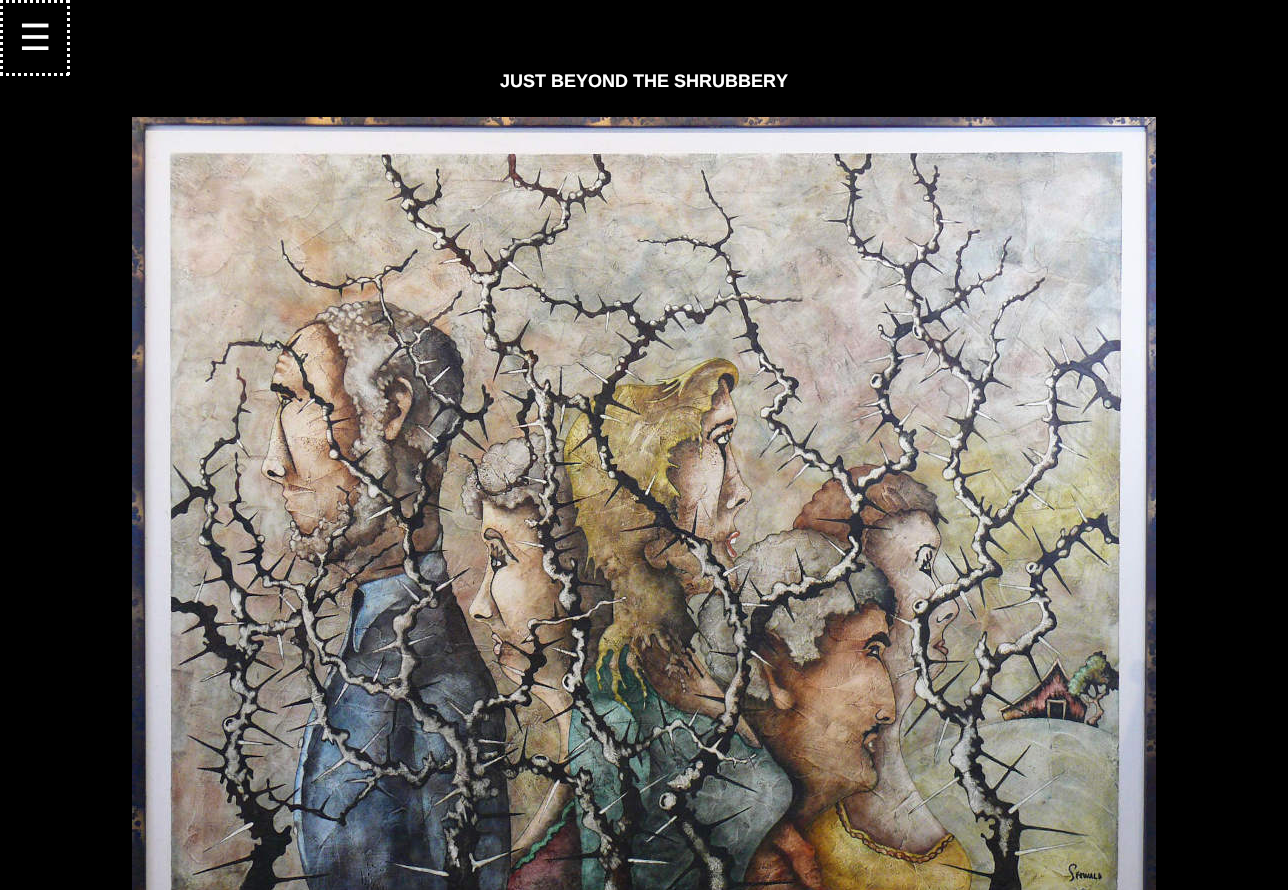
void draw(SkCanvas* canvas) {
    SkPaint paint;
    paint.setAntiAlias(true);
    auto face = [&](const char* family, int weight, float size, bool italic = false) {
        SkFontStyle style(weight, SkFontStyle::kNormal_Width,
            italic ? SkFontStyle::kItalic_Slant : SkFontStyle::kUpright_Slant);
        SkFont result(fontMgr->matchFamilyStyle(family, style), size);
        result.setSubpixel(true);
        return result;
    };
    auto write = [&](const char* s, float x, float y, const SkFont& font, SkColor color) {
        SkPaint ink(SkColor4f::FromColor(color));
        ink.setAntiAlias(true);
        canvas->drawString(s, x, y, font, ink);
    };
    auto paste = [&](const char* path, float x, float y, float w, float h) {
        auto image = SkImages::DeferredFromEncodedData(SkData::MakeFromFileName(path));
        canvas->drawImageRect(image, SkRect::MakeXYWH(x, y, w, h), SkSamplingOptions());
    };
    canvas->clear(SK_ColorBLACK);
    paint.setStyle(SkPaint::kStroke_Style);
    paint.setStrokeWidth(3);
    paint.setColor(SK_ColorWHITE);
    paint.setPathEffect(SkDashPathEffect::Make({{3, 3}}, 0));
    canvas->drawPath(SkPathBuilder().moveTo(0, 1.5f).lineTo(70, 1.5f).detach(), paint);
    paint.setPathEffect(nullptr);
    paint.setPathEffect(SkDashPathEffect::Make({{3, 3}}, 0));
    canvas->drawPath(SkPathBuilder().moveTo(68.5f, 0).lineTo(68.5f, 76).detach(), paint);
    paint.setPathEffect(nullptr);
    paint.setPathEffect(SkDashPathEffect::Make({{3, 3}}, 0));
    canvas->drawPath(SkPathBuilder().moveTo(0, 74.5f).lineTo(70, 74.5f).detach(), paint);
    paint.setPathEffect(nullptr);
    paint.setPathEffect(SkDashPathEffect::Make({{3, 3}}, 0));
    canvas->drawPath(SkPathBuilder().moveTo(1.5f, 0).lineTo(1.5f, 76).detach(), paint);
    paint.setPathEffect(nullptr);
    auto kFont1 = face("DejaVu Sans", 400, 36);
    write("☰", 19, 50, kFont1, SK_ColorWHITE);
    auto kFont2 = face("Liberation Sans", 700, 18);
    write("JUST BEYOND THE SHRUBBERY", 500, 87, kFont2, SK_ColorWHITE);
    paste("pic1.png", 132, 117, 1024, 773);
}
